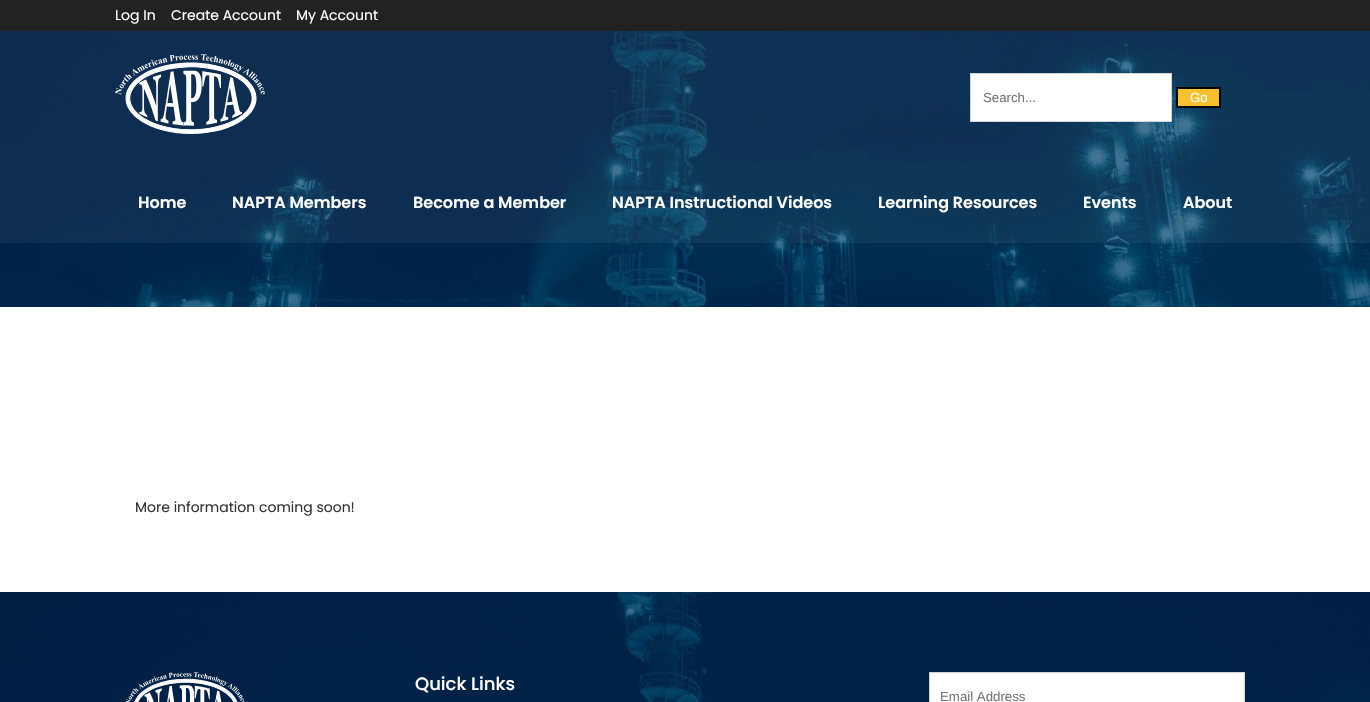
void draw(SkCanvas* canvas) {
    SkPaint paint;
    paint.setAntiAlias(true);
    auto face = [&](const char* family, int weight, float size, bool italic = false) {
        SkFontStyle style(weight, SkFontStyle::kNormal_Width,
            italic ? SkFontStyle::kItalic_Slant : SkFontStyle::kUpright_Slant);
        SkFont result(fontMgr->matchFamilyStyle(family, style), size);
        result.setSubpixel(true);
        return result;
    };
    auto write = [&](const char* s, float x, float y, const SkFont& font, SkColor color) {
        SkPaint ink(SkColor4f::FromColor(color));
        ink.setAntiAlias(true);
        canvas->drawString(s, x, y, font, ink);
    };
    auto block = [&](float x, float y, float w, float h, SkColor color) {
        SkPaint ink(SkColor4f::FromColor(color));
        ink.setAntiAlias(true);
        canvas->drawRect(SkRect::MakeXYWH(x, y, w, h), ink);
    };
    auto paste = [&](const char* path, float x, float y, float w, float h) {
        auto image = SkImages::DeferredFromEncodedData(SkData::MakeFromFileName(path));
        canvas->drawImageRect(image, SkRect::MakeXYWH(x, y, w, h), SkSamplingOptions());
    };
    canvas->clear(SK_ColorWHITE);
    paste("pic1.png", 0, 31, 1370, 276);
    block(0, 0, 1370, 31, SkColorSetRGB(34, 34, 34));
    auto kFont1 = face("Poppins", 400, 14);
    write("Log In", 115, 20, kFont1, SK_ColorWHITE);
    write("Create Account", 171, 20, kFont1, SK_ColorWHITE);
    write("My Account", 296, 20, kFont1, SK_ColorWHITE);
    block(0, 31, 1370, 132, SkColorSetARGB(13, 255, 255, 255));
    paste("pic2.png", 115, 54, 150, 80);
    paint.setColor(SK_ColorWHITE);
    canvas->drawRect(SkRect::MakeXYWH(970.5f, 73.5f, 201, 48), paint);
    paint.setStyle(SkPaint::kStroke_Style);
    paint.setStrokeWidth(1);
    paint.setColor(SkColorSetRGB(212, 212, 212));
    canvas->drawRect(SkRect::MakeXYWH(970.5f, 73.5f, 201, 48), paint);
    auto kFont2 = face("Liberation Sans", 400, 13.25f);
    write("Search...", 983, 102, kFont2, SkColorSetRGB(117, 117, 117));
    paint.setStyle(SkPaint::kFill_Style);
    paint.setColor(SkColorSetRGB(247, 192, 46));
    canvas->drawRect(SkRect::MakeXYWH(1177, 88, 43, 19), paint);
    paint.setStyle(SkPaint::kStroke_Style);
    paint.setStrokeWidth(2);
    paint.setColor(SK_ColorBLACK);
    canvas->drawRect(SkRect::MakeXYWH(1177, 88, 43, 19), paint);
    write("Go", 1190, 102, kFont2, SK_ColorWHITE);
    block(0, 163, 1370, 80, SkColorSetARGB(13, 255, 255, 255));
    auto kFont3 = face("Poppins", 600, 16);
    write("Home", 138, 208, kFont3, SK_ColorWHITE);
    write("NAPTA Members", 232, 208, kFont3, SK_ColorWHITE);
    write("Become a Member", 413, 208, kFont3, SK_ColorWHITE);
    write("NAPTA Instructional Videos", 612, 208, kFont3, SK_ColorWHITE);
    write("Learning Resources", 878, 208, kFont3, SK_ColorWHITE);
    write("Events", 1083, 208, kFont3, SK_ColorWHITE);
    write("About", 1183, 208, kFont3, SK_ColorWHITE);
    write("More information coming soon!", 135, 512, kFont1, SkColorSetRGB(51, 51, 51));
    paste("pic3.png", 0, 592, 1370, 110);
    paste("pic4.png", 125, 672, 120, 30);
    auto kFont4 = face("Poppins", 500, 18);
    write("Quick Links", 415, 690, kFont4, SK_ColorWHITE);
    paint.setStyle(SkPaint::kFill_Style);
    paint.setColor(SK_ColorWHITE);
    canvas->drawRect(SkRect::MakeXYWH(929.5f, 672.5f, 315, 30), paint);
    paint.setStyle(SkPaint::kStroke_Style);
    paint.setStrokeWidth(1);
    paint.setColor(SkColorSetRGB(212, 212, 212));
    canvas->drawRect(SkRect::MakeXYWH(929.5f, 672.5f, 315, 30), paint);
    write("Email Address", 940, 701, kFont2, SkColorSetRGB(117, 117, 117));
}
